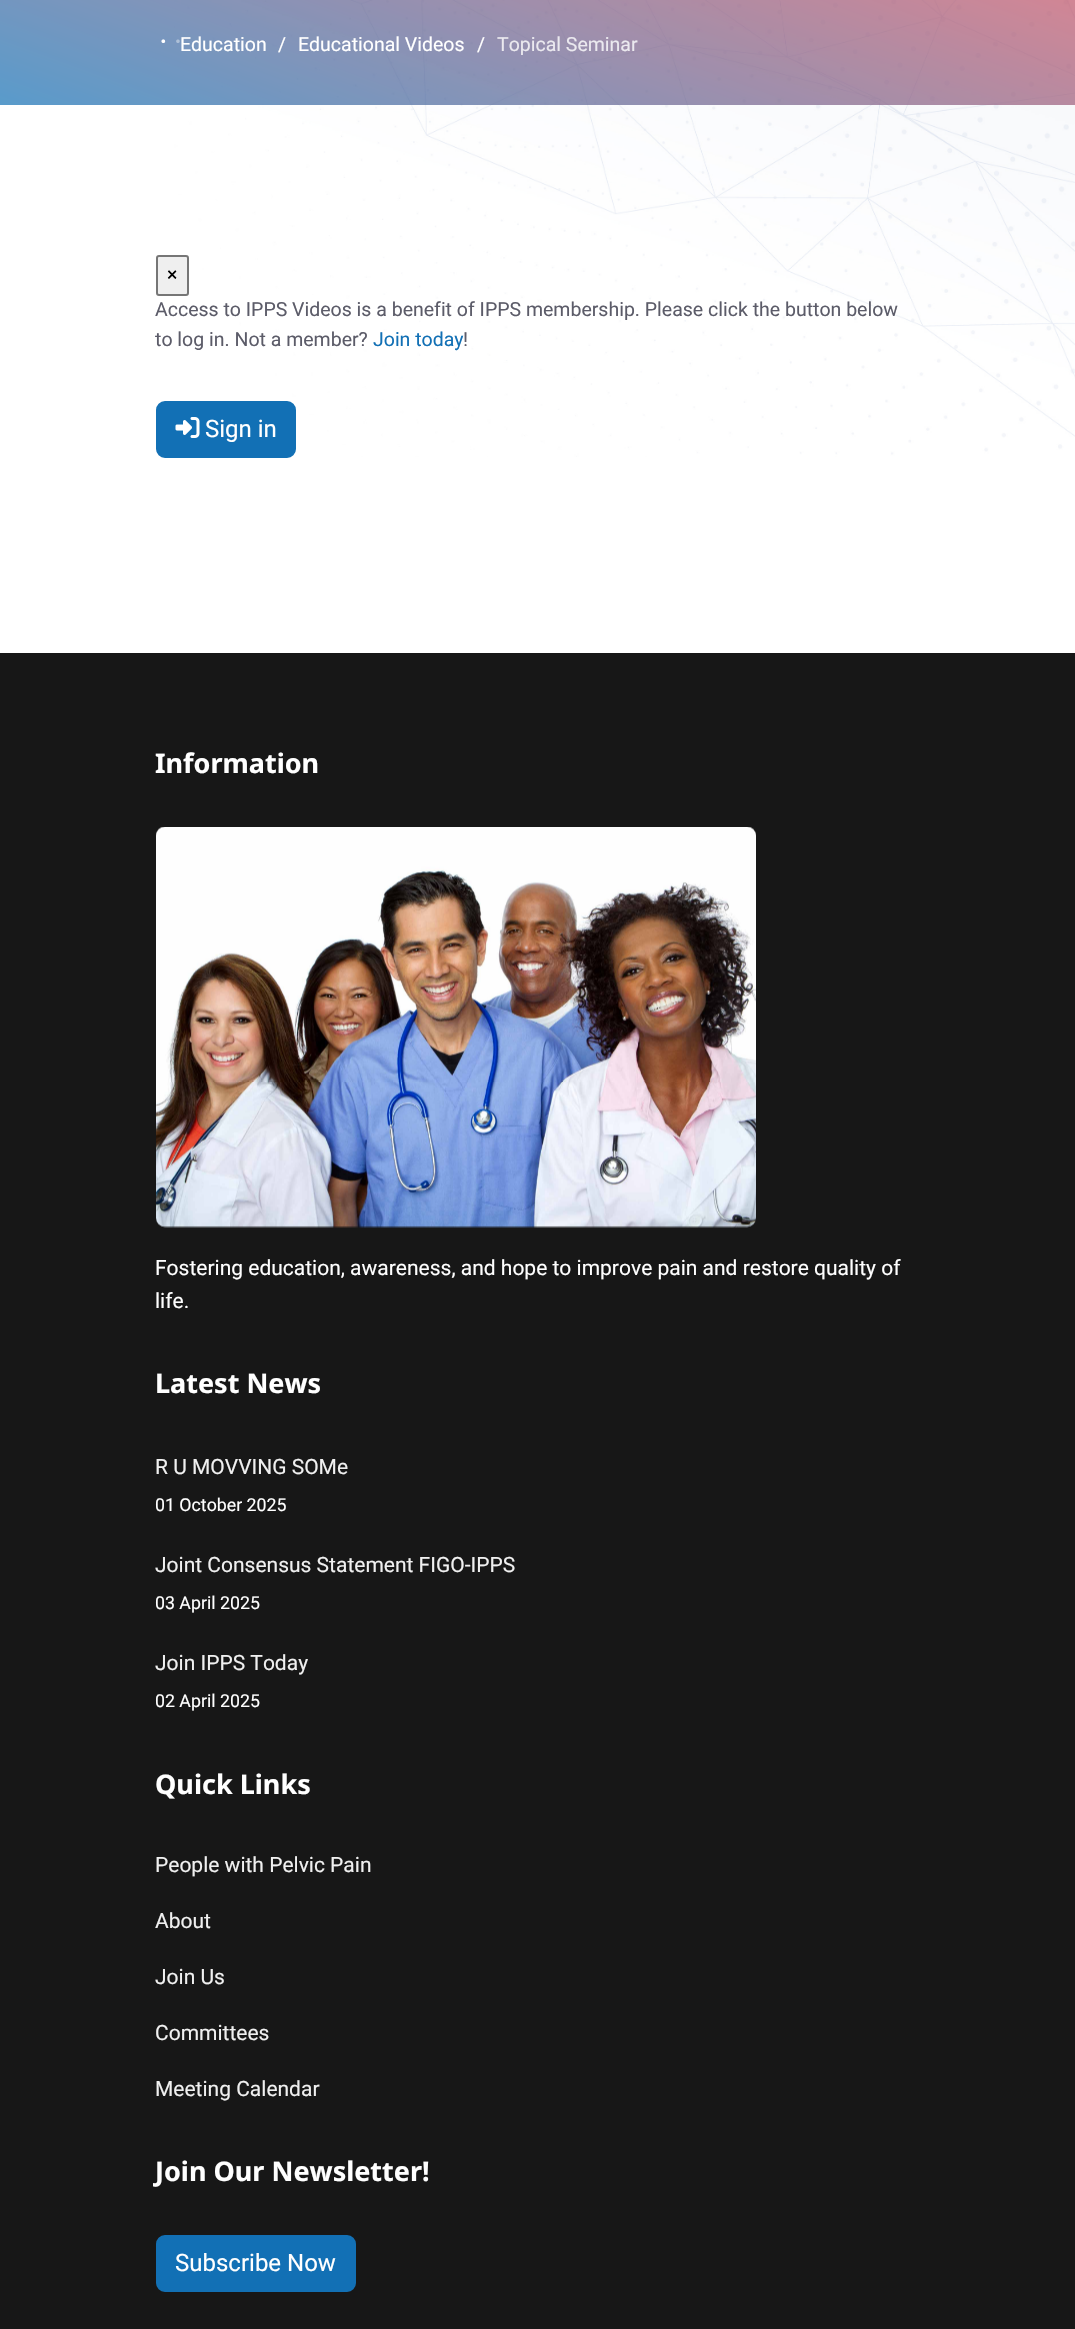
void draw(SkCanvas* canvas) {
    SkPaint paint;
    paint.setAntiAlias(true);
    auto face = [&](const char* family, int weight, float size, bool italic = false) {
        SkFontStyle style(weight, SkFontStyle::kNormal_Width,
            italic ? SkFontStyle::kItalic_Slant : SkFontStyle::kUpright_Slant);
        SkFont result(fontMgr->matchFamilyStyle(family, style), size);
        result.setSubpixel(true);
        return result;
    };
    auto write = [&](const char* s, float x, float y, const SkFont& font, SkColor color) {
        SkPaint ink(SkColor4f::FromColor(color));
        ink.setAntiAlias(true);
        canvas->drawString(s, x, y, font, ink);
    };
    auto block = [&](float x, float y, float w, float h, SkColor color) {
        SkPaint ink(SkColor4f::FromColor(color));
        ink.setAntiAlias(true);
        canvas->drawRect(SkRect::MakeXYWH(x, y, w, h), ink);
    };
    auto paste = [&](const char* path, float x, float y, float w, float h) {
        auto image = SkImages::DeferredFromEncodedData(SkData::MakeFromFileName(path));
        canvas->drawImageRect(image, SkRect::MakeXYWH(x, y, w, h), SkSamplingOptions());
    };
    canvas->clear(SK_ColorWHITE);
    paste("pic1.png", 174, 0, 901, 457);
    {
        const SkColor colors[] = {SkColorSetARGB(179, 216, 82, 95), SkColorSetARGB(179, 18, 112, 181)};
        const float stops[] = {0, 1};
        const SkPoint ends[] = {{628, -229}, {447, 268}};
        paint.setShader(SkGradientShader::MakeLinear(ends, colors, stops, 2, SkTileMode::kClamp));
        paint.setAlpha(255);
    }
    canvas->drawRect(SkRect::MakeXYWH(0, 0, 1075, 105), paint);
    paste("pic2.png", 161, 39, 5, 4);
    paste("pic3.png", 161, 39, 19, 4);
    auto kFont1 = face("Roboto", 400, 19.5f);
    write("Education", 180, 51, kFont1, SK_ColorWHITE);
    write("/", 278, 51, kFont1, SK_ColorWHITE);
    write("Educational Videos", 298, 51, kFont1, SK_ColorWHITE);
    write("/", 477, 51, kFont1, SK_ColorWHITE);
    write("Topical Seminar", 497, 51, kFont1, SkColorSetRGB(235, 233, 239));
    paint.setShader(nullptr);
    paint.setColor(SkColorSetRGB(239, 239, 239));
    canvas->drawRoundRect(SkRect::MakeXYWH(157, 256, 31, 39), 2, 2, paint);
    paint.setStyle(SkPaint::kStroke_Style);
    paint.setStrokeWidth(2);
    paint.setColor(SkColorSetRGB(118, 118, 118));
    canvas->drawRoundRect(SkRect::MakeXYWH(157, 256, 31, 39), 2, 2, paint);
    write("×", 167, 281, kFont1, SK_ColorBLACK);
    write("Access to IPPS Videos is a benefit of IPPS membership. Please click the button below", 155, 316, kFont1, SkColorSetRGB(92, 92, 105));
    write("to log in. Not a member?", 155, 346, kFont1, SkColorSetRGB(92, 92, 105));
    write("Join today", 373, 346, kFont1, SkColorSetRGB(18, 112, 181));
    write("!", 463, 346, kFont1, SkColorSetRGB(92, 92, 105));
    paint.setStyle(SkPaint::kFill_Style);
    paint.setColor(SkColorSetRGB(18, 112, 181));
    canvas->drawRoundRect(SkRect::MakeXYWH(157, 402, 138, 55), 8, 8, paint);
    paint.setStyle(SkPaint::kStroke_Style);
    canvas->drawRoundRect(SkRect::MakeXYWH(157, 402, 138, 55), 8, 8, paint);
    paste("pic4.png", 175, 417, 25, 21);
    auto kFont2 = face("Roboto", 400, 24);
    write("Sign in", 205, 437, kFont2, SK_ColorWHITE);
    block(0, 653, 1075, 1676, SkColorSetRGB(23, 23, 23));
    auto kFont3 = face("Noto Sans", 700, 27);
    write("Information", 155, 773, kFont3, SK_ColorWHITE);
    paste("pic5.png", 156, 827, 600, 401);
    auto kFont4 = face("Roboto", 400, 21);
    write("Fostering education, awareness, and hope to improve pain and restore quality of", 155, 1275, kFont4, SK_ColorWHITE);
    write("life.", 155, 1308, kFont4, SK_ColorWHITE);
    write("Latest News", 155, 1393, kFont3, SK_ColorWHITE);
    write("R U MOVVING SOMe", 155, 1474, kFont4, SkColorSetRGB(240, 240, 240));
    auto kFont5 = face("Roboto", 400, 17.75f);
    write("01 October 2025", 155, 1511, kFont5, SK_ColorWHITE);
    write("Joint Consensus Statement FIGO-IPPS", 155, 1572, kFont4, SkColorSetRGB(240, 240, 240));
    write("03 April 2025", 155, 1609, kFont5, SK_ColorWHITE);
    write("Join IPPS Today", 155, 1670, kFont4, SkColorSetRGB(240, 240, 240));
    write("02 April 2025", 155, 1707, kFont5, SK_ColorWHITE);
    write("Quick Links", 155, 1794, kFont3, SK_ColorWHITE);
    write("People with Pelvic Pain", 155, 1872, kFont4, SkColorSetRGB(240, 240, 240));
    write("About", 155, 1928, kFont4, SkColorSetRGB(240, 240, 240));
    write("Join Us", 155, 1984, kFont4, SkColorSetRGB(240, 240, 240));
    write("Committees", 155, 2040, kFont4, SkColorSetRGB(240, 240, 240));
    write("Meeting Calendar", 155, 2096, kFont4, SkColorSetRGB(240, 240, 240));
    write("Join Our Newsletter!", 155, 2181, kFont3, SK_ColorWHITE);
    paint.setStyle(SkPaint::kFill_Style);
    canvas->drawRoundRect(SkRect::MakeXYWH(157, 2236, 198, 55), 8, 8, paint);
    paint.setStyle(SkPaint::kStroke_Style);
    canvas->drawRoundRect(SkRect::MakeXYWH(157, 2236, 198, 55), 8, 8, paint);
    write("Subscribe Now", 175, 2271, kFont2, SK_ColorWHITE);
}
